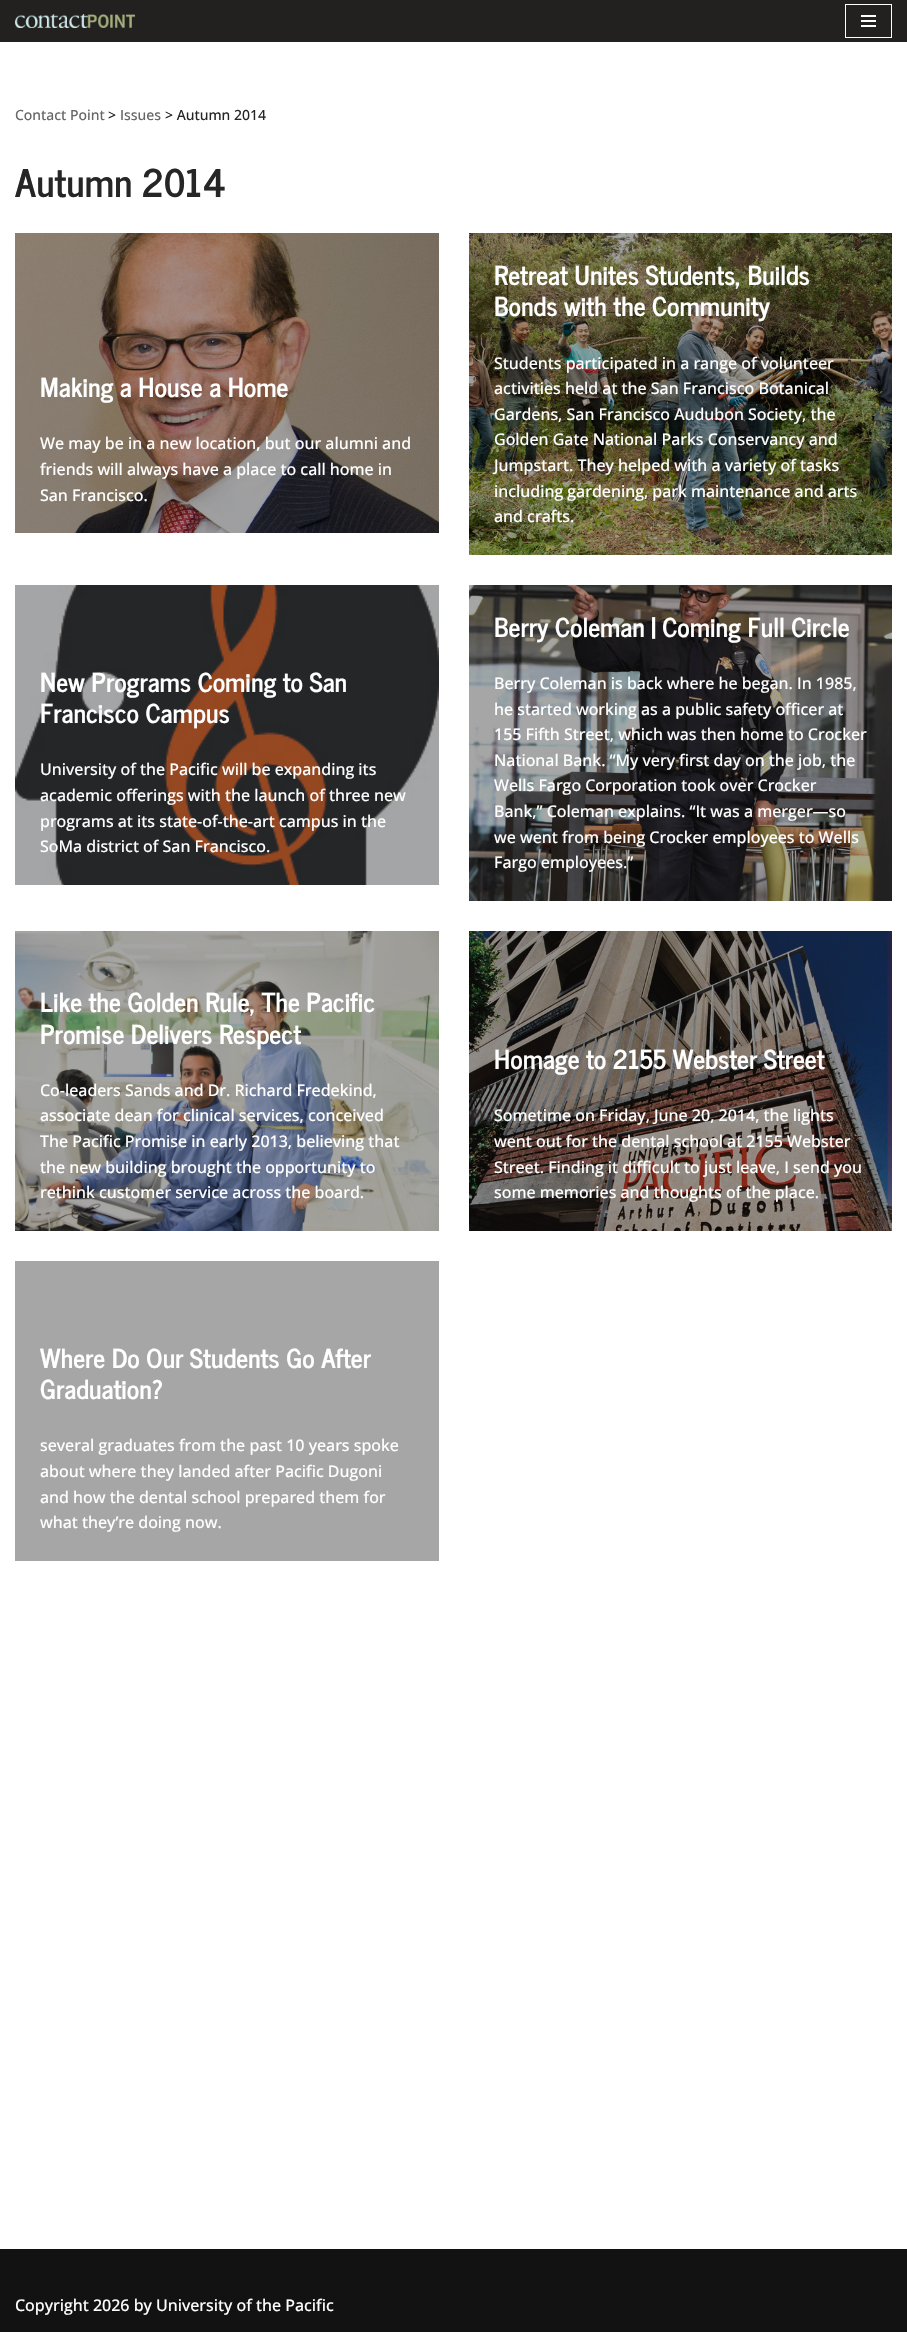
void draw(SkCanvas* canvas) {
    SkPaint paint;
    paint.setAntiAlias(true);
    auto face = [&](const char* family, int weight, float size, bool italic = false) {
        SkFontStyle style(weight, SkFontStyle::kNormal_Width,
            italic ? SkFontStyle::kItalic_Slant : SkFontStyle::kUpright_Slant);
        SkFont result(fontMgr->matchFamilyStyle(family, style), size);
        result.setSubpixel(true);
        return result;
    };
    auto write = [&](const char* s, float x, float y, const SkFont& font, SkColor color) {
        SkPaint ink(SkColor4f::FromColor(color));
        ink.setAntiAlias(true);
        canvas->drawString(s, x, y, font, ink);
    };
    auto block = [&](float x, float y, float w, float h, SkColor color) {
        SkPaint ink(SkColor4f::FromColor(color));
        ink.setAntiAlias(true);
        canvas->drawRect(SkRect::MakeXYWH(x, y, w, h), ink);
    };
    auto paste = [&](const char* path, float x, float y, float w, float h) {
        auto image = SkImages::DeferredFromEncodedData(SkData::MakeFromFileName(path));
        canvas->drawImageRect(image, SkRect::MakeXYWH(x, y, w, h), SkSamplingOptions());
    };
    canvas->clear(SK_ColorWHITE);
    block(0, 0, 907, 42, SkColorSetRGB(35, 32, 32));
    paste("pic1.png", 15, 14, 120, 14);
    paint.setStyle(SkPaint::kStroke_Style);
    paint.setStrokeWidth(1);
    paint.setColor(SK_ColorWHITE);
    canvas->drawRect(SkRect::MakeXYWH(845.5f, 4.5f, 46, 33), paint);
    block(861, 15, 15, 2, SK_ColorWHITE);
    block(861, 20, 15, 2, SK_ColorWHITE);
    block(861, 25, 15, 2, SK_ColorWHITE);
    auto kFont1 = face("Open Sans", 500, 14);
    write("Contact Point", 15, 120, kFont1, SkColorSetRGB(103, 103, 103));
    write(">", 108, 120, kFont1, SkColorSetRGB(39, 38, 38));
    write("Issues", 120, 120, kFont1, SkColorSetRGB(103, 103, 103));
    write("> Autumn 2014", 165, 120, kFont1, SkColorSetRGB(39, 38, 38));
    auto kFont2 = face("News Cycle", 700, 38);
    write("Autumn 2014", 15, 197, kFont2, SkColorSetRGB(39, 38, 38));
    paste("pic2.png", 15, 233, 424, 300);
    auto kFont3 = face("News Cycle", 700, 26);
    write("Making a House a Home", 40, 397, kFont3, SK_ColorWHITE);
    auto kFont4 = face("Open Sans", 500, 16);
    write("We may be in a new location, but our alumni and", 40, 449, kFont4, SK_ColorWHITE);
    write("friends will always have a place to call home in", 40, 475, kFont4, SK_ColorWHITE);
    write("San Francisco.", 40, 501, kFont4, SK_ColorWHITE);
    paste("pic3.png", 469, 233, 423, 322);
    write("Retreat Unites Students, Builds", 494, 285, kFont3, SK_ColorWHITE);
    write("Bonds with the Community", 494, 316, kFont3, SK_ColorWHITE);
    write("Students participated in a range of volunteer", 494, 369, kFont4, SK_ColorWHITE);
    write("activities held at the San Francisco Botanical", 494, 394, kFont4, SK_ColorWHITE);
    write("Gardens, San Francisco Audubon Society, the", 494, 420, kFont4, SK_ColorWHITE);
    write("Golden Gate National Parks Conservancy and", 494, 445, kFont4, SK_ColorWHITE);
    write("Jumpstart. They helped with a variety of tasks", 494, 471, kFont4, SK_ColorWHITE);
    write("including gardening, park maintenance and arts", 494, 497, kFont4, SK_ColorWHITE);
    write("and crafts.", 494, 522, kFont4, SK_ColorWHITE);
    paste("pic4.png", 15, 585, 424, 300);
    write("New Programs Coming to San", 40, 692, kFont3, SK_ColorWHITE);
    write("Francisco Campus", 40, 723, kFont3, SK_ColorWHITE);
    write("University of the Pacific will be expanding its", 40, 775, kFont4, SK_ColorWHITE);
    write("academic offerings with the launch of three new", 40, 801, kFont4, SK_ColorWHITE);
    write("programs at its state-of-the-art campus in the", 40, 827, kFont4, SK_ColorWHITE);
    write("SoMa district of San Francisco.", 40, 852, kFont4, SK_ColorWHITE);
    paste("pic5.png", 469, 585, 423, 316);
    write("Berry Coleman | Coming Full Circle", 494, 637, kFont3, SK_ColorWHITE);
    write("Berry Coleman is back where he began. In 1985,", 494, 689, kFont4, SK_ColorWHITE);
    write("he started working as a public safety officer at", 494, 715, kFont4, SK_ColorWHITE);
    write("155 Fifth Street, which was then home to Crocker", 494, 740, kFont4, SK_ColorWHITE);
    write("National Bank. “My very first day on the job, the", 494, 766, kFont4, SK_ColorWHITE);
    write("Wells Fargo Corporation took over Crocker", 494, 791, kFont4, SK_ColorWHITE);
    write("Bank,” Coleman explains. “It was a merger—so", 494, 817, kFont4, SK_ColorWHITE);
    write("we went from being Crocker employees to Wells", 494, 843, kFont4, SK_ColorWHITE);
    write("Fargo employees.”", 494, 868, kFont4, SK_ColorWHITE);
    paste("pic6.png", 15, 931, 424, 300);
    write("Like the Golden Rule, The Pacific", 40, 1012, kFont3, SK_ColorWHITE);
    write("Promise Delivers Respect", 40, 1044, kFont3, SK_ColorWHITE);
    write("Co-leaders Sands and Dr. Richard Fredekind,", 40, 1096, kFont4, SK_ColorWHITE);
    write("associate dean for clinical services, conceived", 40, 1121, kFont4, SK_ColorWHITE);
    write("The Pacific Promise in early 2013, believing that", 40, 1147, kFont4, SK_ColorWHITE);
    write("the new building brought the opportunity to", 40, 1173, kFont4, SK_ColorWHITE);
    write("rethink customer service across the board.", 40, 1198, kFont4, SK_ColorWHITE);
    paste("pic7.png", 469, 931, 423, 300);
    write("Homage to 2155 Webster Street", 494, 1069, kFont3, SK_ColorWHITE);
    write("Sometime on Friday, June 20, 2014, the lights", 494, 1121, kFont4, SK_ColorWHITE);
    write("went out for the dental school at 2155 Webster", 494, 1147, kFont4, SK_ColorWHITE);
    write("Street. Finding it difficult to just leave, I send you", 494, 1173, kFont4, SK_ColorWHITE);
    write("some memories and thoughts of the place.", 494, 1198, kFont4, SK_ColorWHITE);
    block(15, 1261, 424, 300, SkColorSetRGB(166, 166, 166));
    write("Where Do Our Students Go After", 40, 1368, kFont3, SK_ColorWHITE);
    write("Graduation?", 40, 1399, kFont3, SK_ColorWHITE);
    write("several graduates from the past 10 years spoke", 40, 1451, kFont4, SK_ColorWHITE);
    write("about where they landed after Pacific Dugoni", 40, 1477, kFont4, SK_ColorWHITE);
    write("and how the dental school prepared them for", 40, 1503, kFont4, SK_ColorWHITE);
    write("what they’re doing now.", 40, 1528, kFont4, SK_ColorWHITE);
    block(0, 2249, 907, 83, SkColorSetRGB(18, 18, 18));
    write("Copyright 2026 by University of the Pacific", 15, 2311, kFont4, SK_ColorWHITE);
}
